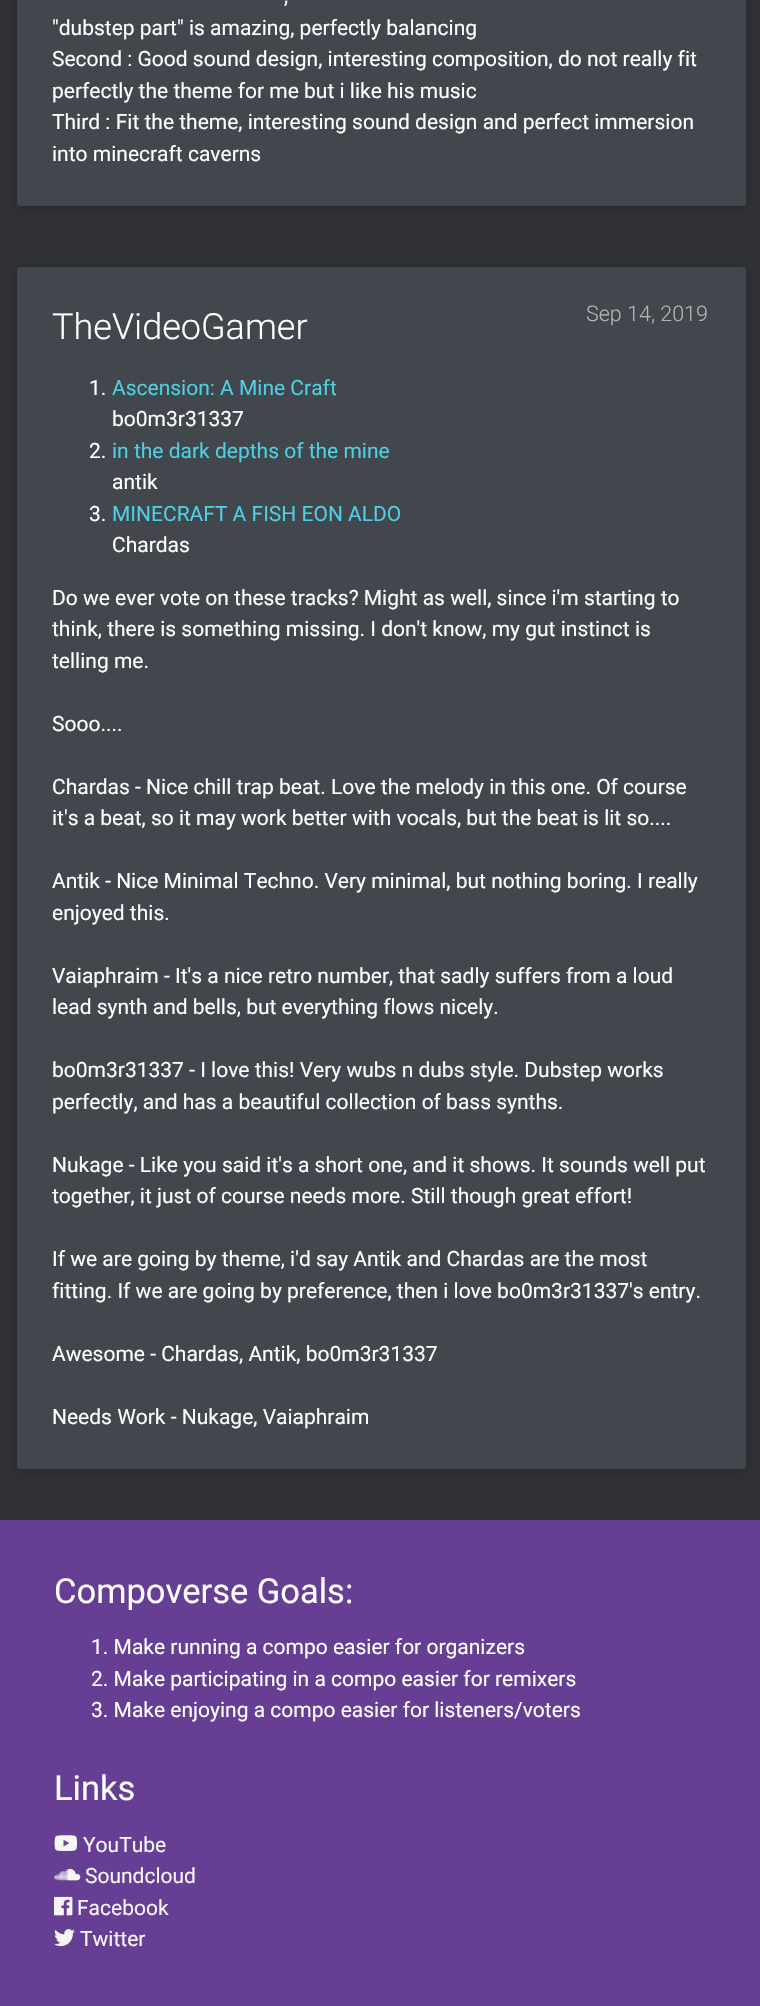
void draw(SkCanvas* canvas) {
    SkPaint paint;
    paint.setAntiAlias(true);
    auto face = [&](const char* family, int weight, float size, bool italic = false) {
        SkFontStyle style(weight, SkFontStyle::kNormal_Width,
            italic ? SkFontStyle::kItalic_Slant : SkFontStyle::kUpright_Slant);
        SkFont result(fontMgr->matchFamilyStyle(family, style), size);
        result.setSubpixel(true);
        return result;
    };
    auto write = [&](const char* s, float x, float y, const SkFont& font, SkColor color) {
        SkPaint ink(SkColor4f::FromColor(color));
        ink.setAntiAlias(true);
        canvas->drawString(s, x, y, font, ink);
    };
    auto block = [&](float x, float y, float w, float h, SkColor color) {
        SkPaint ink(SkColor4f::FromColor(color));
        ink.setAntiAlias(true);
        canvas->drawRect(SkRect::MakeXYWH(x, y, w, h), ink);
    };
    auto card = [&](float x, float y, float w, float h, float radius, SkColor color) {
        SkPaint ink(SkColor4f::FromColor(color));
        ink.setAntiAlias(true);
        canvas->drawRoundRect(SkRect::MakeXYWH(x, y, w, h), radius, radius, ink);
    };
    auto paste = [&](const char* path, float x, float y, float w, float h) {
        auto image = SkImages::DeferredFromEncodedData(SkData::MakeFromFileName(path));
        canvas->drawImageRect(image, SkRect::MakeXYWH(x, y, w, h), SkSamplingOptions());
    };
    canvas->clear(SkColorSetRGB(47, 49, 54));
    paint.setColor(SkColorSetARGB(51, 0, 0, 0));
    paint.setMaskFilter(SkMaskFilter::MakeBlur(kNormal_SkBlurStyle, 4));
    canvas->drawRoundRect(SkRect::MakeXYWH(17, -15, 729, 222), 3, 3, paint);
    paint.setMaskFilter(nullptr);
    card(17, -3, 729, 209, 3, SkColorSetRGB(66, 70, 77));
    auto kFont1 = face("Roboto", 400, 21);
    write(",", 284, 3, kFont1, SK_ColorWHITE);
    write("\"dubstep part\" is amazing, perfectly balancing", 52, 35, kFont1, SK_ColorWHITE);
    write("Second : Good sound design, interesting composition, do not really fit", 52, 66, kFont1, SK_ColorWHITE);
    write("perfectly the theme for me but i like his music", 52, 98, kFont1, SK_ColorWHITE);
    write("Third : Fit the theme, interesting sound design and perfect immersion", 52, 129, kFont1, SK_ColorWHITE);
    write("into minecraft caverns", 52, 161, kFont1, SK_ColorWHITE);
    paint.setMaskFilter(SkMaskFilter::MakeBlur(kNormal_SkBlurStyle, 4));
    canvas->drawRoundRect(SkRect::MakeXYWH(17, 269, 729, 1201), 3, 3, paint);
    paint.setMaskFilter(nullptr);
    card(17, 267, 729, 1202, 3, SkColorSetRGB(66, 70, 77));
    auto kFont2 = face("Roboto", 300, 36);
    write("TheVideoGamer", 52, 339, kFont2, SK_ColorWHITE);
    auto kFont3 = face("Roboto", 300, 21.5f);
    write("Sep 14, 2019", 586, 321, kFont3, SkColorSetRGB(180, 180, 180));
    write("1.", 89, 395, kFont1, SK_ColorWHITE);
    write("Ascension: A Mine Craft", 112, 395, kFont1, SkColorSetRGB(77, 208, 225));
    write("bo0m3r31337", 112, 426, kFont1, SK_ColorWHITE);
    write("2.", 89, 458, kFont1, SK_ColorWHITE);
    write("in the dark depths of the mine", 112, 458, kFont1, SkColorSetRGB(77, 208, 225));
    write("antik", 112, 489, kFont1, SK_ColorWHITE);
    write("3.", 89, 521, kFont1, SK_ColorWHITE);
    write("MINECRAFT A FISH EON ALDO", 112, 521, kFont1, SkColorSetRGB(77, 208, 225));
    write("Chardas", 112, 552, kFont1, SK_ColorWHITE);
    write("Do we ever vote on these tracks? Might as well, since i'm starting to", 52, 605, kFont1, SK_ColorWHITE);
    write("think, there is something missing. I don't know, my gut instinct is", 52, 636, kFont1, SK_ColorWHITE);
    write("telling me.", 52, 668, kFont1, SK_ColorWHITE);
    write("Sooo....", 52, 731, kFont1, SK_ColorWHITE);
    write("Chardas - Nice chill trap beat. Love the melody in this one. Of course", 52, 794, kFont1, SK_ColorWHITE);
    write("it's a beat, so it may work better with vocals, but the beat is lit so....", 52, 825, kFont1, SK_ColorWHITE);
    write("Antik - Nice Minimal Techno. Very minimal, but nothing boring. I really", 52, 888, kFont1, SK_ColorWHITE);
    write("enjoyed this.", 52, 920, kFont1, SK_ColorWHITE);
    write("Vaiaphraim - It's a nice retro number, that sadly suffers from a loud", 52, 983, kFont1, SK_ColorWHITE);
    write("lead synth and bells, but everything flows nicely.", 52, 1014, kFont1, SK_ColorWHITE);
    write("bo0m3r31337 - I love this! Very wubs n dubs style. Dubstep works", 52, 1077, kFont1, SK_ColorWHITE);
    write("perfectly, and has a beautiful collection of bass synths.", 52, 1109, kFont1, SK_ColorWHITE);
    write("Nukage - Like you said it's a short one, and it shows. It sounds well put", 52, 1172, kFont1, SK_ColorWHITE);
    write("together, it just of course needs more. Still though great effort!", 52, 1203, kFont1, SK_ColorWHITE);
    write("If we are going by theme, i'd say Antik and Chardas are the most", 52, 1266, kFont1, SK_ColorWHITE);
    write("fitting. If we are going by preference, then i love bo0m3r31337's entry.", 52, 1298, kFont1, SK_ColorWHITE);
    write("Awesome - Chardas, Antik, bo0m3r31337", 52, 1361, kFont1, SK_ColorWHITE);
    write("Needs Work - Nukage, Vaiaphraim", 52, 1424, kFont1, SK_ColorWHITE);
    block(0, 1520, 760, 486, SkColorSetRGB(102, 63, 148));
    auto kFont4 = face("Roboto", 400, 34.5f);
    write("Compoverse Goals:", 54, 1603, kFont4, SK_ColorWHITE);
    write("1. Make running a compo easier for organizers", 91, 1654, kFont1, SK_ColorWHITE);
    write("2. Make participating in a compo easier for remixers", 91, 1686, kFont1, SK_ColorWHITE);
    write("3. Make enjoying a compo easier for listeners/voters", 91, 1717, kFont1, SK_ColorWHITE);
    write("Links", 54, 1800, kFont4, SK_ColorWHITE);
    paste("pic1.png", 54, 1835, 23, 16);
    write("YouTube", 83, 1852, kFont1, SkColorSetRGB(245, 245, 245));
    paste("pic2.png", 54, 1868, 27, 13);
    write("Soundcloud", 85, 1883, kFont1, SkColorSetRGB(245, 245, 245));
    paste("pic3.png", 54, 1896, 19, 20);
    write("Facebook", 77, 1915, kFont1, SkColorSetRGB(245, 245, 245));
    paste("pic4.png", 54, 1929, 21, 18);
    write("Twitter", 80, 1946, kFont1, SkColorSetRGB(245, 245, 245));
}
